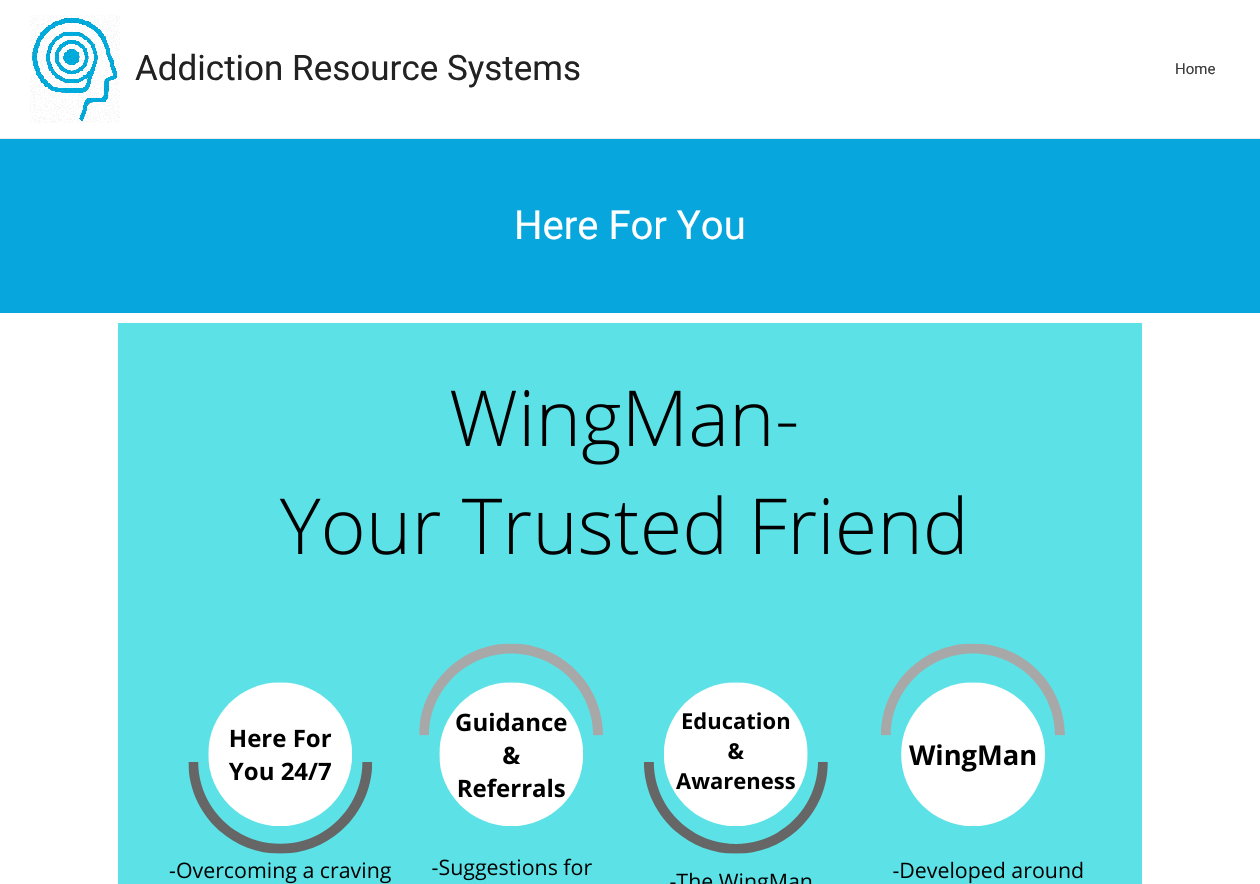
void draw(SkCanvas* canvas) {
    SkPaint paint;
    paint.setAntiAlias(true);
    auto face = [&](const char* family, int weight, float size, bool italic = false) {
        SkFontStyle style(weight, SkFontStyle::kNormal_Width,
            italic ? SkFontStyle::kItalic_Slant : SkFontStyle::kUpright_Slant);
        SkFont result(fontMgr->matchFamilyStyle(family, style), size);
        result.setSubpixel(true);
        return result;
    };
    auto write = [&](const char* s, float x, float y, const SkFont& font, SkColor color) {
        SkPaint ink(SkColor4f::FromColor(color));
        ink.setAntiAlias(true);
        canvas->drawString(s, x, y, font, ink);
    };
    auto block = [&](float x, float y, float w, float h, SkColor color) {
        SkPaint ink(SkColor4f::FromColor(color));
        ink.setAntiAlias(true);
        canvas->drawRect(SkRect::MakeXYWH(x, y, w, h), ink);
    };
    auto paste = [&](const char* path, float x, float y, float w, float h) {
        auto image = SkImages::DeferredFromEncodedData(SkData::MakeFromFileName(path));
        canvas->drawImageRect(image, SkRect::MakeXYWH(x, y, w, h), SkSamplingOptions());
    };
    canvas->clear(SK_ColorWHITE);
    block(0, 138, 1260, 1, SkColorSetRGB(234, 234, 234));
    paste("pic1.png", 30, 15, 90, 108);
    auto kFont1 = face("Roboto", 400, 35);
    write("Addiction Resource Systems", 135, 80, kFont1, SkColorSetRGB(34, 34, 34));
    auto kFont2 = face("Roboto", 400, 15);
    write("Home", 1175, 74, kFont2, SkColorSetRGB(58, 58, 58));
    block(0, 139, 1260, 174, SkColorSetRGB(7, 167, 221));
    auto kFont3 = face("Roboto", 400, 40);
    write("Here For You", 514, 239, kFont3, SK_ColorWHITE);
    paste("pic2.png", 118, 323, 1024, 561);
}
